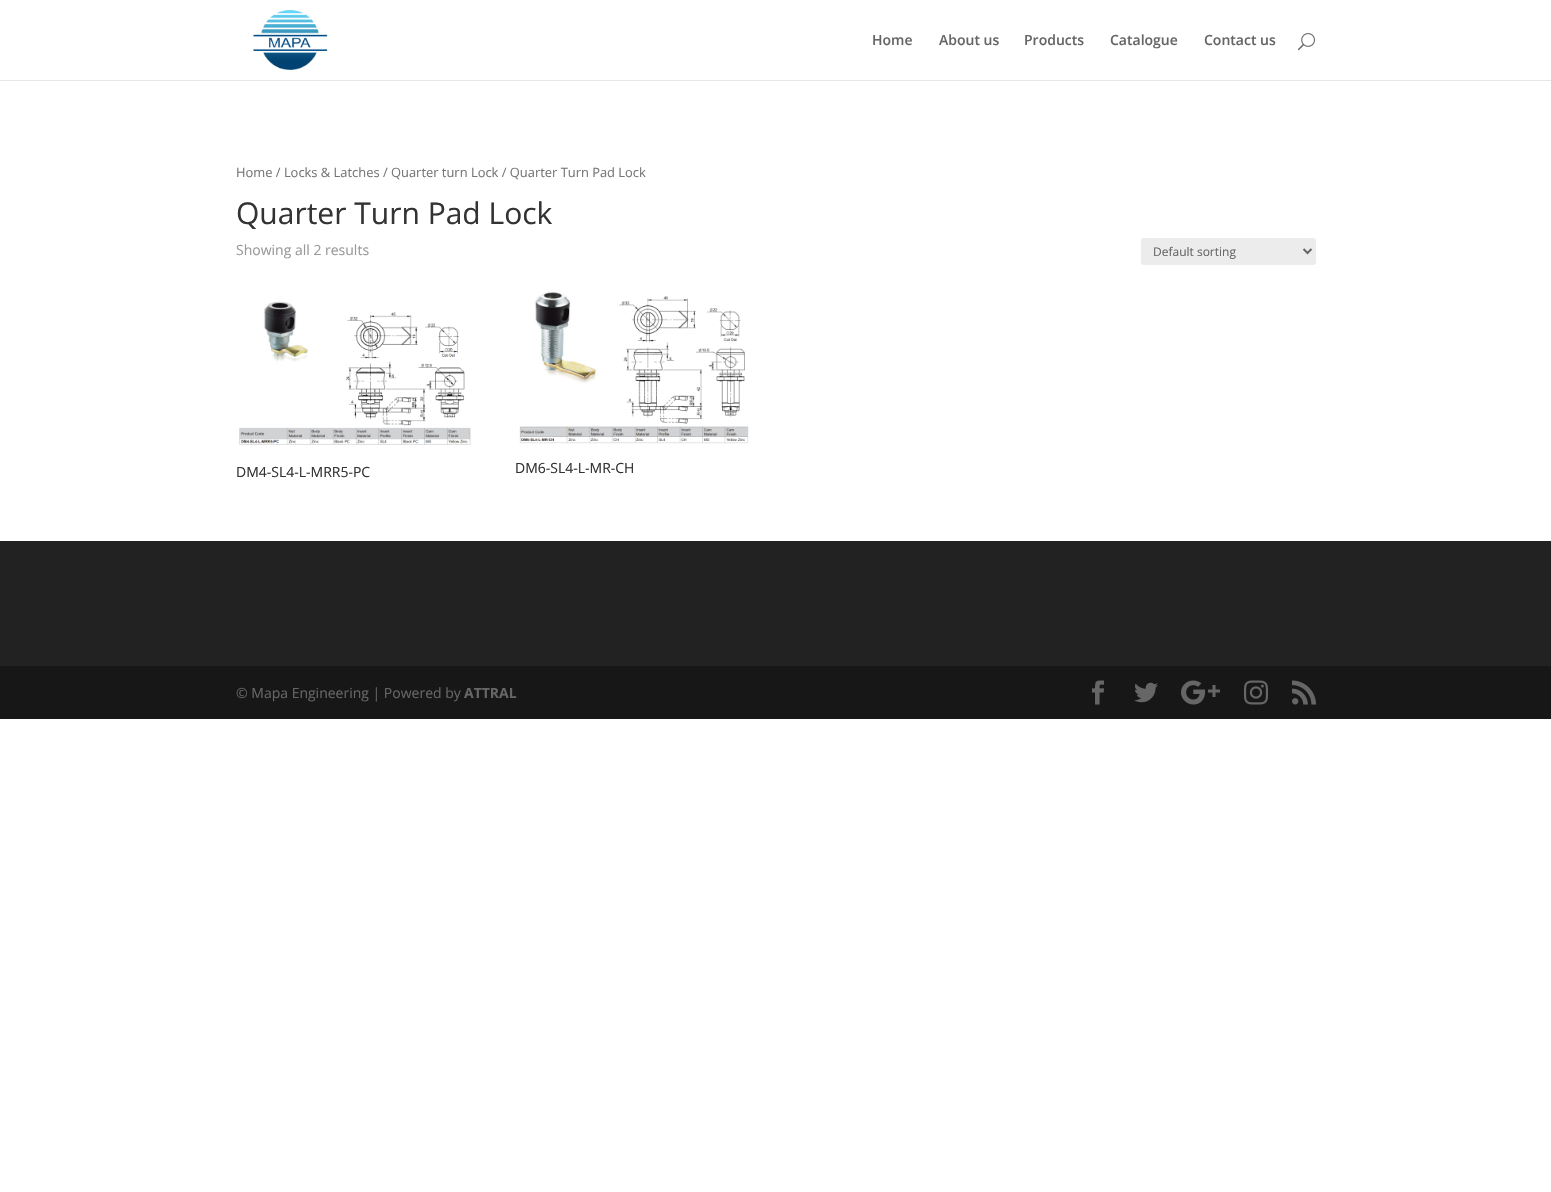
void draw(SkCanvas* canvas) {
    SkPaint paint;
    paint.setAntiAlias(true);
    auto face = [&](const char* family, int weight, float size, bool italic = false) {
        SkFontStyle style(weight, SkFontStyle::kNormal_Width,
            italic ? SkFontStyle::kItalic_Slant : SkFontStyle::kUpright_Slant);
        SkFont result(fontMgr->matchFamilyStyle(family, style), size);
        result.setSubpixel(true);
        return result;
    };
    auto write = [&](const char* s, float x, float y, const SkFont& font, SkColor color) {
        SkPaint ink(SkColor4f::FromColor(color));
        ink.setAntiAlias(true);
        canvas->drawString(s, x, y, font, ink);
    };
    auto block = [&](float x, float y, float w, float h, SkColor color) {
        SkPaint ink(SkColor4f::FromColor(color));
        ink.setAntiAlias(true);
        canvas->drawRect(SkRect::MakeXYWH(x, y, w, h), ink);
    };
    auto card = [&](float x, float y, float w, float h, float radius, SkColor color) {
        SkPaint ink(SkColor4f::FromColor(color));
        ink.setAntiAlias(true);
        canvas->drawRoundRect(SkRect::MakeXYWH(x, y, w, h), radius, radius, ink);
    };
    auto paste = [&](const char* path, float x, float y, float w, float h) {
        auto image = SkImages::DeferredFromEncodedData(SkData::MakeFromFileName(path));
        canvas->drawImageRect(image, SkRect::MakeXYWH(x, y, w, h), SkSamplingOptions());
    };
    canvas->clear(SK_ColorWHITE);
    block(0, 80, 1551, 1, SkColorSetRGB(230, 230, 230));
    paste("pic1.png", 253, 10, 75, 60);
    auto kFont1 = face("Open Sans", 600, 14);
    write("Home", 872, 45, kFont1, SkColorSetRGB(102, 102, 102));
    write("About us", 939, 45, kFont1, SkColorSetRGB(102, 102, 102));
    write("Products", 1024, 45, kFont1, SkColorSetRGB(102, 102, 102));
    write("Catalogue", 1110, 45, kFont1, SkColorSetRGB(102, 102, 102));
    write("Contact us", 1204, 45, kFont1, SkColorSetRGB(102, 102, 102));
    paste("pic2.png", 1298, 33, 17, 18);
    auto kFont2 = face("Open Sans", 400, 12.9f);
    write("Home / Locks & Latches / Quarter turn Lock / Quarter Turn Pad Lock", 236, 177, kFont2, SkColorSetRGB(118, 118, 118));
    auto kFont3 = face("Open Sans", 400, 30);
    write("Quarter Turn Pad Lock", 236, 224, kFont3, SkColorSetRGB(51, 51, 51));
    auto kFont4 = face("Open Sans", 400, 14);
    write("Showing all 2 results", 236, 255, kFont4, SkColorSetRGB(153, 153, 153));
    card(1141, 238, 175, 27, 3, SkColorSetRGB(236, 236, 236));
    paint.setStyle(SkPaint::kStroke_Style);
    paint.setStrokeWidth(2);
    paint.setColor(SkColorSetRGB(102, 102, 102));
    canvas->drawPath(SkPathBuilder().moveTo(1303.5f, 249).lineTo(1307.5f, 253).lineTo(1311.5f, 249).detach(), paint);
    auto kFont5 = face("Open Sans", 400, 12);
    write("Default sorting", 1153, 256, kFont5, SkColorSetRGB(102, 102, 102));
    paste("pic3.png", 239, 301, 232, 144);
    write("DM4-SL4-L-MRR5-PC", 236, 477, kFont4, SkColorSetRGB(51, 51, 51));
    paste("pic4.png", 519, 292, 230, 152);
    write("DM6-SL4-L-MR-CH", 515, 473, kFont4, SkColorSetRGB(51, 51, 51));
    block(0, 541, 1551, 125, SkColorSetRGB(34, 34, 34));
    block(0, 666, 1551, 53, SkColorSetRGB(23, 23, 23));
    write("© Mapa Engineering | Powered by", 236, 698, kFont4, SkColorSetRGB(102, 102, 102));
    auto kFont6 = face("Open Sans", 700, 14);
    write("ATTRAL", 464, 698, kFont6, SkColorSetRGB(102, 102, 102));
    paste("pic5.png", 1092, 680, 12, 25);
    paste("pic6.png", 1134, 682, 24, 21);
    paste("pic7.png", 1181, 680, 39, 25);
    paste("pic8.png", 1244, 680, 24, 25);
    paste("pic9.png", 1292, 680, 24, 25);
}
